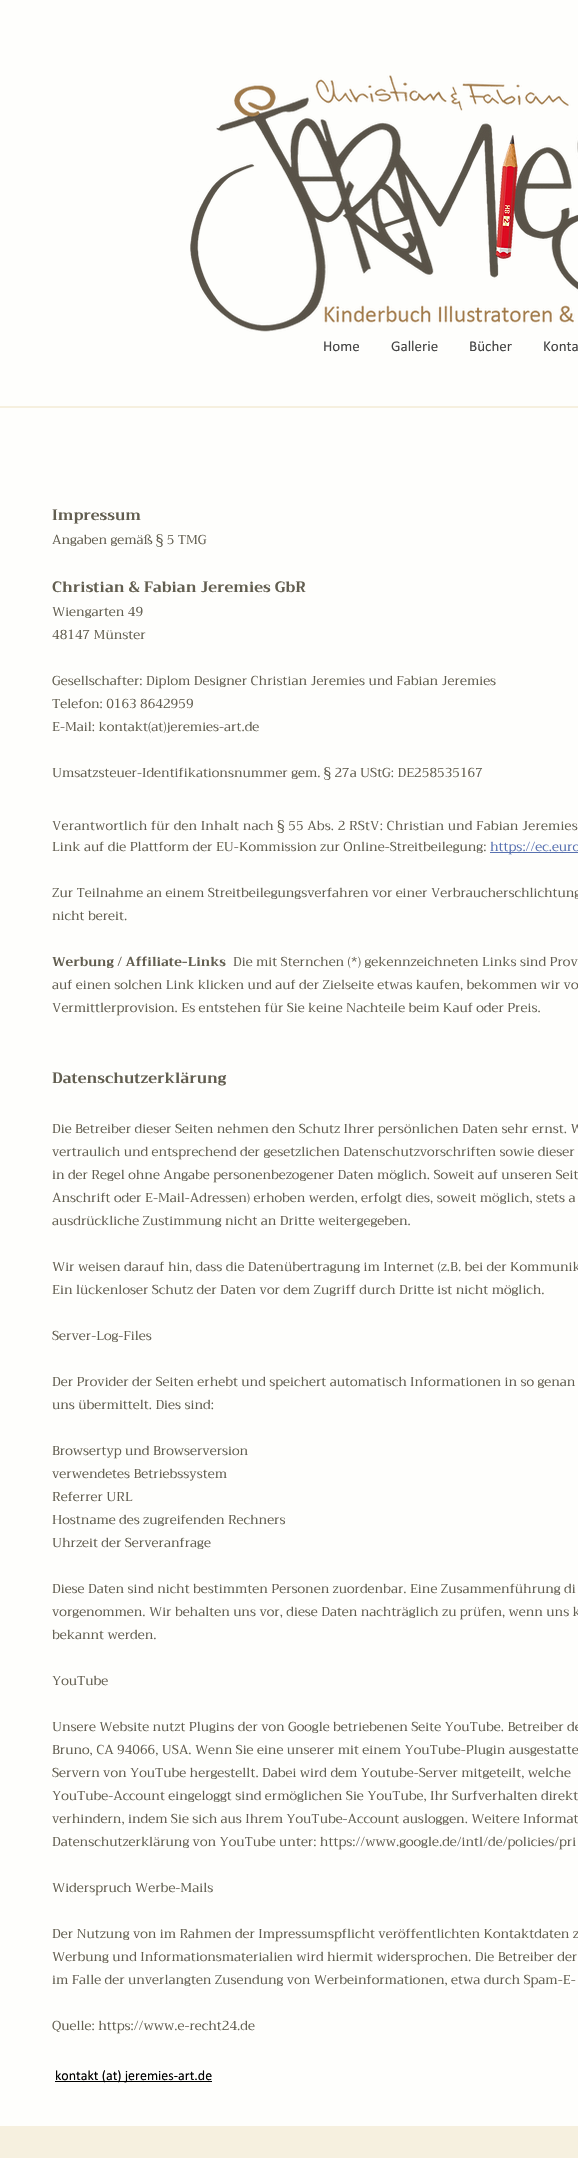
void draw(SkCanvas* canvas) {
    SkPaint paint;
    paint.setAntiAlias(true);
    auto face = [&](const char* family, int weight, float size, bool italic = false) {
        SkFontStyle style(weight, SkFontStyle::kNormal_Width,
            italic ? SkFontStyle::kItalic_Slant : SkFontStyle::kUpright_Slant);
        SkFont result(fontMgr->matchFamilyStyle(family, style), size);
        result.setSubpixel(true);
        return result;
    };
    auto write = [&](const char* s, float x, float y, const SkFont& font, SkColor color) {
        SkPaint ink(SkColor4f::FromColor(color));
        ink.setAntiAlias(true);
        canvas->drawString(s, x, y, font, ink);
    };
    auto writeSpaced = [&](const char* s, float x, float y, const SkFont& font, const SkPaint& ink, float letter, float word) {
        std::vector<SkGlyphID> glyphs(font.countText(s, strlen(s), SkTextEncoding::kUTF8));
        std::vector<float> xs(glyphs.size());
        font.textToGlyphs(s, strlen(s), SkTextEncoding::kUTF8, glyphs);
        font.getXPos(glyphs, xs, x);
        float extra = 0;
        for (size_t i = 0; i < glyphs.size(); i++) {
            xs[i] += extra;
            extra += letter + word * (glyphs[i] == font.unicharToGlyph(' '));
        }
        canvas->drawTextBlob(SkTextBlob::MakeFromPosHGlyphs(glyphs, xs, y, font), 0, 0, ink);
    };
    auto block = [&](float x, float y, float w, float h, SkColor color) {
        SkPaint ink(SkColor4f::FromColor(color));
        ink.setAntiAlias(true);
        canvas->drawRect(SkRect::MakeXYWH(x, y, w, h), ink);
    };
    auto paste = [&](const char* path, float x, float y, float w, float h) {
        auto image = SkImages::DeferredFromEncodedData(SkData::MakeFromFileName(path));
        canvas->drawImageRect(image, SkRect::MakeXYWH(x, y, w, h), SkSamplingOptions());
    };
    canvas->clear(SkColorSetRGB(246, 240, 223));
    block(0, 0, 578, 406, SkColorSetRGB(254, 254, 252));
    paste("pic1.png", 190, 75, 388, 257);
    auto kFont1 = face("Calibri", 400, 15);
    write("Home", 323, 351, kFont1, SkColorSetRGB(68, 68, 68));
    write("Gallerie", 391, 351, kFont1, SkColorSetRGB(68, 68, 68));
    write("Bücher", 469, 351, kFont1, SkColorSetRGB(68, 68, 68));
    write("Konta", 543, 351, kFont1, SkColorSetRGB(68, 68, 68));
    block(0, 408, 578, 1718, SkColorSetRGB(254, 254, 252));
    auto kFont2 = face("Trirong", 700, 15);
    write("Impressum", 52, 520, kFont2, SkColorSetRGB(98, 94, 80));
    auto kFont3 = face("Trirong", 400, 13);
    write("Angaben gemäß § 5 TMG", 52, 544, kFont3, SkColorSetRGB(98, 94, 80));
    write("Christian & Fabian Jeremies GbR", 52, 592, kFont2, SkColorSetRGB(98, 94, 80));
    write("Wiengarten 49", 52, 616, kFont3, SkColorSetRGB(98, 94, 80));
    write("48147 Münster", 52, 639, kFont3, SkColorSetRGB(98, 94, 80));
    write("Gesellschafter: Diplom Designer Christian Jeremies und Fabian Jeremies", 52, 685, kFont3, SkColorSetRGB(98, 94, 80));
    write("Telefon: 0163 8642959", 52, 708, kFont3, SkColorSetRGB(98, 94, 80));
    write("E-Mail: kontakt(at)jeremies-art.de", 52, 731, kFont3, SkColorSetRGB(98, 94, 80));
    write("Umsatzsteuer-Identifikationsnummer gem. § 27a UStG: DE258535167", 52, 777, kFont3, SkColorSetRGB(98, 94, 80));
    paint.setColor(SkColorSetRGB(98, 94, 80));
    writeSpaced("Verantwortlich für den Inhalt nach § 55 Abs. 2 RStV: Christian und Fabian Jeremies", 52, 830, kFont3, paint, 0.13f, 0);
    write("Link auf die Plattform der EU-Kommission zur Online-Streitbeilegung:", 52, 851, kFont3, SkColorSetRGB(98, 94, 80));
    block(490, 852, 88, 1, SkColorSetRGB(88, 113, 176));
    write("https://ec.euro", 490, 851, kFont3, SkColorSetRGB(88, 113, 176));
    write("Zur Teilnahme an einem Streitbeilegungsverfahren vor einer Verbraucherschlichtung", 52, 897, kFont3, SkColorSetRGB(98, 94, 80));
    write("nicht bereit.", 52, 920, kFont3, SkColorSetRGB(98, 94, 80));
    auto kFont4 = face("Trirong", 700, 13);
    write("Werbung / Affiliate-Links", 52, 966, kFont4, SkColorSetRGB(98, 94, 80));
    write("Die mit Sternchen (*) gekennzeichneten Links sind Prov", 233, 966, kFont3, SkColorSetRGB(98, 94, 80));
    write("auf einen solchen Link klicken und auf der Zielseite etwas kaufen, bekommen wir vo", 52, 989, kFont3, SkColorSetRGB(98, 94, 80));
    write("Vermittlerprovision. Es entstehen für Sie keine Nachteile beim Kauf oder Preis.", 52, 1012, kFont3, SkColorSetRGB(98, 94, 80));
    write("Datenschutzerklärung", 52, 1083, kFont2, SkColorSetRGB(98, 94, 80));
    write("Die Betreiber dieser Seiten nehmen den Schutz Ihrer persönlichen Daten sehr ernst. W", 52, 1133, kFont3, SkColorSetRGB(98, 94, 80));
    write("vertraulich und entsprechend der gesetzlichen Datenschutzvorschriften sowie dieser", 52, 1156, kFont3, SkColorSetRGB(98, 94, 80));
    write("in der Regel ohne Angabe personenbezogener Daten möglich. Soweit auf unseren Seit", 52, 1179, kFont3, SkColorSetRGB(98, 94, 80));
    write("Anschrift oder E-Mail-Adressen) erhoben werden, erfolgt dies, soweit möglich, stets a", 52, 1202, kFont3, SkColorSetRGB(98, 94, 80));
    write("ausdrückliche Zustimmung nicht an Dritte weitergegeben.", 52, 1225, kFont3, SkColorSetRGB(98, 94, 80));
    write("Wir weisen darauf hin, dass die Datenübertragung im Internet (z.B. bei der Kommunik", 52, 1271, kFont3, SkColorSetRGB(98, 94, 80));
    write("Ein lückenloser Schutz der Daten vor dem Zugriff durch Dritte ist nicht möglich.", 52, 1294, kFont3, SkColorSetRGB(98, 94, 80));
    write("Server-Log-Files", 52, 1340, kFont3, SkColorSetRGB(98, 94, 80));
    write("Der Provider der Seiten erhebt und speichert automatisch Informationen in so genan", 52, 1386, kFont3, SkColorSetRGB(98, 94, 80));
    write("uns übermittelt. Dies sind:", 52, 1409, kFont3, SkColorSetRGB(98, 94, 80));
    write("Browsertyp und Browserversion", 52, 1455, kFont3, SkColorSetRGB(98, 94, 80));
    write("verwendetes Betriebssystem", 52, 1478, kFont3, SkColorSetRGB(98, 94, 80));
    write("Referrer URL", 52, 1501, kFont3, SkColorSetRGB(98, 94, 80));
    write("Hostname des zugreifenden Rechners", 52, 1524, kFont3, SkColorSetRGB(98, 94, 80));
    write("Uhrzeit der Serveranfrage", 52, 1547, kFont3, SkColorSetRGB(98, 94, 80));
    write("Diese Daten sind nicht bestimmten Personen zuordenbar. Eine Zusammenführung di", 52, 1593, kFont3, SkColorSetRGB(98, 94, 80));
    write("vorgenommen. Wir behalten uns vor, diese Daten nachträglich zu prüfen, wenn uns k", 52, 1616, kFont3, SkColorSetRGB(98, 94, 80));
    write("bekannt werden.", 52, 1639, kFont3, SkColorSetRGB(98, 94, 80));
    write("YouTube", 52, 1685, kFont3, SkColorSetRGB(98, 94, 80));
    write("Unsere Website nutzt Plugins der von Google betriebenen Seite YouTube. Betreiber de", 52, 1731, kFont3, SkColorSetRGB(98, 94, 80));
    write("Bruno, CA 94066, USA. Wenn Sie eine unserer mit einem YouTube-Plugin ausgestatte", 52, 1754, kFont3, SkColorSetRGB(98, 94, 80));
    write("Servern von YouTube hergestellt. Dabei wird dem Youtube-Server mitgeteilt, welche", 52, 1777, kFont3, SkColorSetRGB(98, 94, 80));
    write("YouTube-Account eingeloggt sind ermöglichen Sie YouTube, Ihr Surfverhalten direkt", 52, 1800, kFont3, SkColorSetRGB(98, 94, 80));
    write("verhindern, indem Sie sich aus Ihrem YouTube-Account ausloggen. Weitere Informat", 52, 1823, kFont3, SkColorSetRGB(98, 94, 80));
    write("Datenschutzerklärung von YouTube unter: https://www.google.de/intl/de/policies/pri", 52, 1846, kFont3, SkColorSetRGB(98, 94, 80));
    write("Widerspruch Werbe-Mails", 52, 1892, kFont3, SkColorSetRGB(98, 94, 80));
    write("Der Nutzung von im Rahmen der Impressumspflicht veröffentlichten Kontaktdaten z", 52, 1938, kFont3, SkColorSetRGB(98, 94, 80));
    write("Werbung und Informationsmaterialien wird hiermit widersprochen. Die Betreiber der", 52, 1961, kFont3, SkColorSetRGB(98, 94, 80));
    write("im Falle der unverlangten Zusendung von Werbeinformationen, etwa durch Spam-E-", 52, 1984, kFont3, SkColorSetRGB(98, 94, 80));
    write("Quelle: https://www.e-recht24.de", 52, 2030, kFont3, SkColorSetRGB(98, 94, 80));
    block(55, 2081, 157, 1, SK_ColorBLACK);
    auto kFont5 = face("Calibri", 400, 14);
    write("kontakt (at) jeremies-art.de", 55, 2080, kFont5, SK_ColorBLACK);
}
